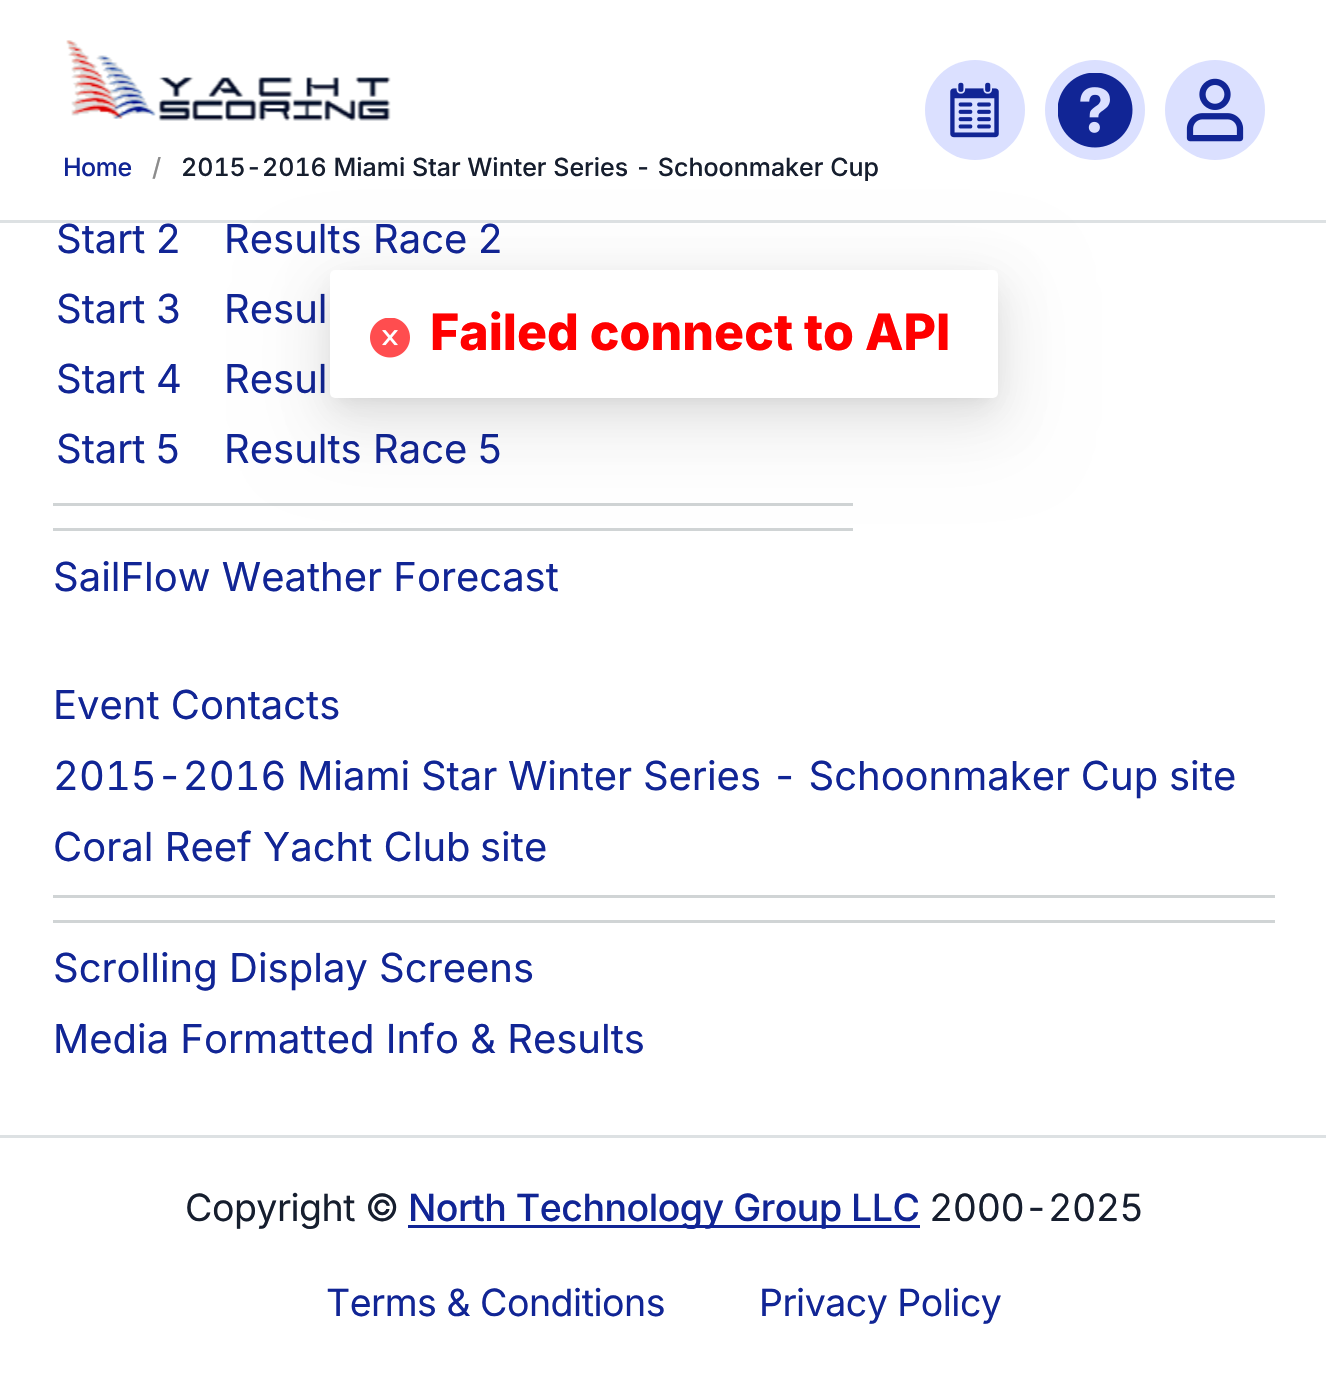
void draw(SkCanvas* canvas) {
    SkPaint paint;
    paint.setAntiAlias(true);
    auto face = [&](const char* family, int weight, float size, bool italic = false) {
        SkFontStyle style(weight, SkFontStyle::kNormal_Width,
            italic ? SkFontStyle::kItalic_Slant : SkFontStyle::kUpright_Slant);
        SkFont result(fontMgr->matchFamilyStyle(family, style), size);
        result.setSubpixel(true);
        return result;
    };
    auto write = [&](const char* s, float x, float y, const SkFont& font, SkColor color) {
        SkPaint ink(SkColor4f::FromColor(color));
        ink.setAntiAlias(true);
        canvas->drawString(s, x, y, font, ink);
    };
    auto writeSpaced = [&](const char* s, float x, float y, const SkFont& font, const SkPaint& ink, float letter, float word) {
        std::vector<SkGlyphID> glyphs(font.countText(s, strlen(s), SkTextEncoding::kUTF8));
        std::vector<float> xs(glyphs.size());
        font.textToGlyphs(s, strlen(s), SkTextEncoding::kUTF8, glyphs);
        font.getXPos(glyphs, xs, x);
        float extra = 0;
        for (size_t i = 0; i < glyphs.size(); i++) {
            xs[i] += extra;
            extra += letter + word * (glyphs[i] == font.unicharToGlyph(' '));
        }
        canvas->drawTextBlob(SkTextBlob::MakeFromPosHGlyphs(glyphs, xs, y, font), 0, 0, ink);
    };
    auto block = [&](float x, float y, float w, float h, SkColor color) {
        SkPaint ink(SkColor4f::FromColor(color));
        ink.setAntiAlias(true);
        canvas->drawRect(SkRect::MakeXYWH(x, y, w, h), ink);
    };
    auto card = [&](float x, float y, float w, float h, float radius, SkColor color) {
        SkPaint ink(SkColor4f::FromColor(color));
        ink.setAntiAlias(true);
        canvas->drawRoundRect(SkRect::MakeXYWH(x, y, w, h), radius, radius, ink);
    };
    auto paste = [&](const char* path, float x, float y, float w, float h) {
        auto image = SkImages::DeferredFromEncodedData(SkData::MakeFromFileName(path));
        canvas->drawImageRect(image, SkRect::MakeXYWH(x, y, w, h), SkSamplingOptions());
    };
    canvas->clear(SK_ColorWHITE);
    block(0, 220, 1326, 3, SkColorSetRGB(221, 225, 227));
    paint.setColor(SkColorSetRGB(219, 224, 255));
    canvas->drawCircle(975, 110, 50, paint);
    paste("pic1.png", 950, 82, 49, 56);
    canvas->drawCircle(1095, 110, 50, paint);
    paste("pic2.png", 1058, 73, 75, 75);
    canvas->drawCircle(1215, 110, 50, paint);
    paste("pic3.png", 1186, 78, 58, 64);
    paste("pic4.png", 66, 40, 325, 81);
    auto kFont1 = face("Inter", 500, 25);
    paint.setColor(SkColorSetRGB(17, 37, 149));
    writeSpaced("Home", 63, 176, kFont1, paint, -0.5f, 0);
    write("/", 152, 176, kFont1, SkColorSetRGB(140, 140, 140));
    auto kFont2 = face("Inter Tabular", 500, 25);
    write("2015-2016 Miami Star Winter Series - Schoonmaker Cup", 181, 176, kFont2, SkColorSetRGB(22, 30, 46));
    auto kFont3 = face("Inter", 400, 40);
    write("Start", 56, 253, kFont3, SkColorSetRGB(17, 37, 149));
    write("2", 156, 253, kFont3, SkColorSetRGB(17, 37, 149));
    write("Results Race", 224, 253, kFont3, SkColorSetRGB(17, 37, 149));
    write("2", 478, 253, kFont3, SkColorSetRGB(17, 37, 149));
    write("Start", 56, 323, kFont3, SkColorSetRGB(17, 37, 149));
    write("3", 156, 323, kFont3, SkColorSetRGB(17, 37, 149));
    write("Resul", 224, 323, kFont3, SkColorSetRGB(17, 37, 149));
    write("Start", 56, 393, kFont3, SkColorSetRGB(17, 37, 149));
    write("4", 156, 393, kFont3, SkColorSetRGB(17, 37, 149));
    write("Resul", 224, 393, kFont3, SkColorSetRGB(17, 37, 149));
    write("Start", 56, 463, kFont3, SkColorSetRGB(17, 37, 149));
    write("5", 156, 463, kFont3, SkColorSetRGB(17, 37, 149));
    write("Results Race", 224, 463, kFont3, SkColorSetRGB(17, 37, 149));
    write("5", 478, 463, kFont3, SkColorSetRGB(17, 37, 149));
    block(53, 503, 800, 3, SkColorSetRGB(208, 212, 213));
    block(53, 528, 800, 3, SkColorSetRGB(208, 212, 213));
    write("SailFlow Weather Forecast", 53, 591, kFont3, SkColorSetRGB(17, 37, 149));
    write("Event Contacts", 53, 719, kFont3, SkColorSetRGB(17, 37, 149));
    auto kFont4 = face("Inter Tabular", 400, 40);
    write("2015-2016 Miami Star Winter Series - Schoonmaker Cup", 53, 790, kFont4, SkColorSetRGB(17, 37, 149));
    write("site", 1169, 790, kFont3, SkColorSetRGB(17, 37, 149));
    write("Coral Reef Yacht Club", 53, 861, kFont3, SkColorSetRGB(17, 37, 149));
    write("site", 480, 861, kFont3, SkColorSetRGB(17, 37, 149));
    block(53, 895, 1222, 3, SkColorSetRGB(208, 212, 213));
    block(53, 920, 1222, 3, SkColorSetRGB(208, 212, 213));
    write("Scrolling Display Screens", 53, 982, kFont3, SkColorSetRGB(17, 37, 149));
    write("Media Formatted Info & Results", 53, 1053, kFont3, SkColorSetRGB(17, 37, 149));
    block(0, 1135, 1326, 3, SkColorSetRGB(221, 225, 227));
    auto kFont5 = face("Inter", 400, 37.5f);
    paint.setColor(SkColorSetRGB(22, 30, 46));
    writeSpaced("Copyright ©", 185, 1221, kFont5, paint, -0.5f, 0);
    block(408, 1225, 512, 3, SkColorSetRGB(17, 37, 149));
    auto kFont6 = face("Inter", 500, 37.5f);
    paint.setColor(SkColorSetRGB(17, 37, 149));
    writeSpaced("North Technology Group LLC", 408, 1221, kFont6, paint, -0.5f, 0);
    auto kFont7 = face("Inter Tabular", 400, 37.5f);
    paint.setColor(SkColorSetRGB(22, 30, 46));
    writeSpaced("2000-2025", 929, 1221, kFont7, paint, -0.5f, 0);
    paint.setColor(SkColorSetRGB(17, 37, 149));
    writeSpaced("Terms & Conditions", 326, 1316, kFont5, paint, -0.5f, 0);
    writeSpaced("Privacy Policy", 759, 1316, kFont5, paint, -0.5f, 0);
    paint.setColor(SkColorSetARGB(13, 0, 0, 0));
    paint.setMaskFilter(SkMaskFilter::MakeBlur(kNormal_SkBlurStyle, 35));
    canvas->drawRoundRect(SkRect::MakeXYWH(310, 273, 708, 167), 25, 25, paint);
    paint.setMaskFilter(nullptr);
    paint.setColor(SkColorSetARGB(20, 0, 0, 0));
    paint.setMaskFilter(SkMaskFilter::MakeBlur(kNormal_SkBlurStyle, 20));
    canvas->drawRoundRect(SkRect::MakeXYWH(330, 285, 668, 128), 5, 5, paint);
    paint.setMaskFilter(nullptr);
    paint.setColor(SkColorSetARGB(31, 0, 0, 0));
    paint.setMaskFilter(SkMaskFilter::MakeBlur(kNormal_SkBlurStyle, 7.5f));
    canvas->drawRect(SkRect::MakeXYWH(340, 288, 648, 107), paint);
    paint.setMaskFilter(nullptr);
    card(330, 270, 668, 128, 5, SK_ColorWHITE);
    paste("pic5.png", 370, 318, 40, 40);
    auto kFont8 = face("Inter", 800, 50);
    write("Failed connect to API", 430, 350, kFont8, SkColorSetRGB(255, 0, 0));
}
